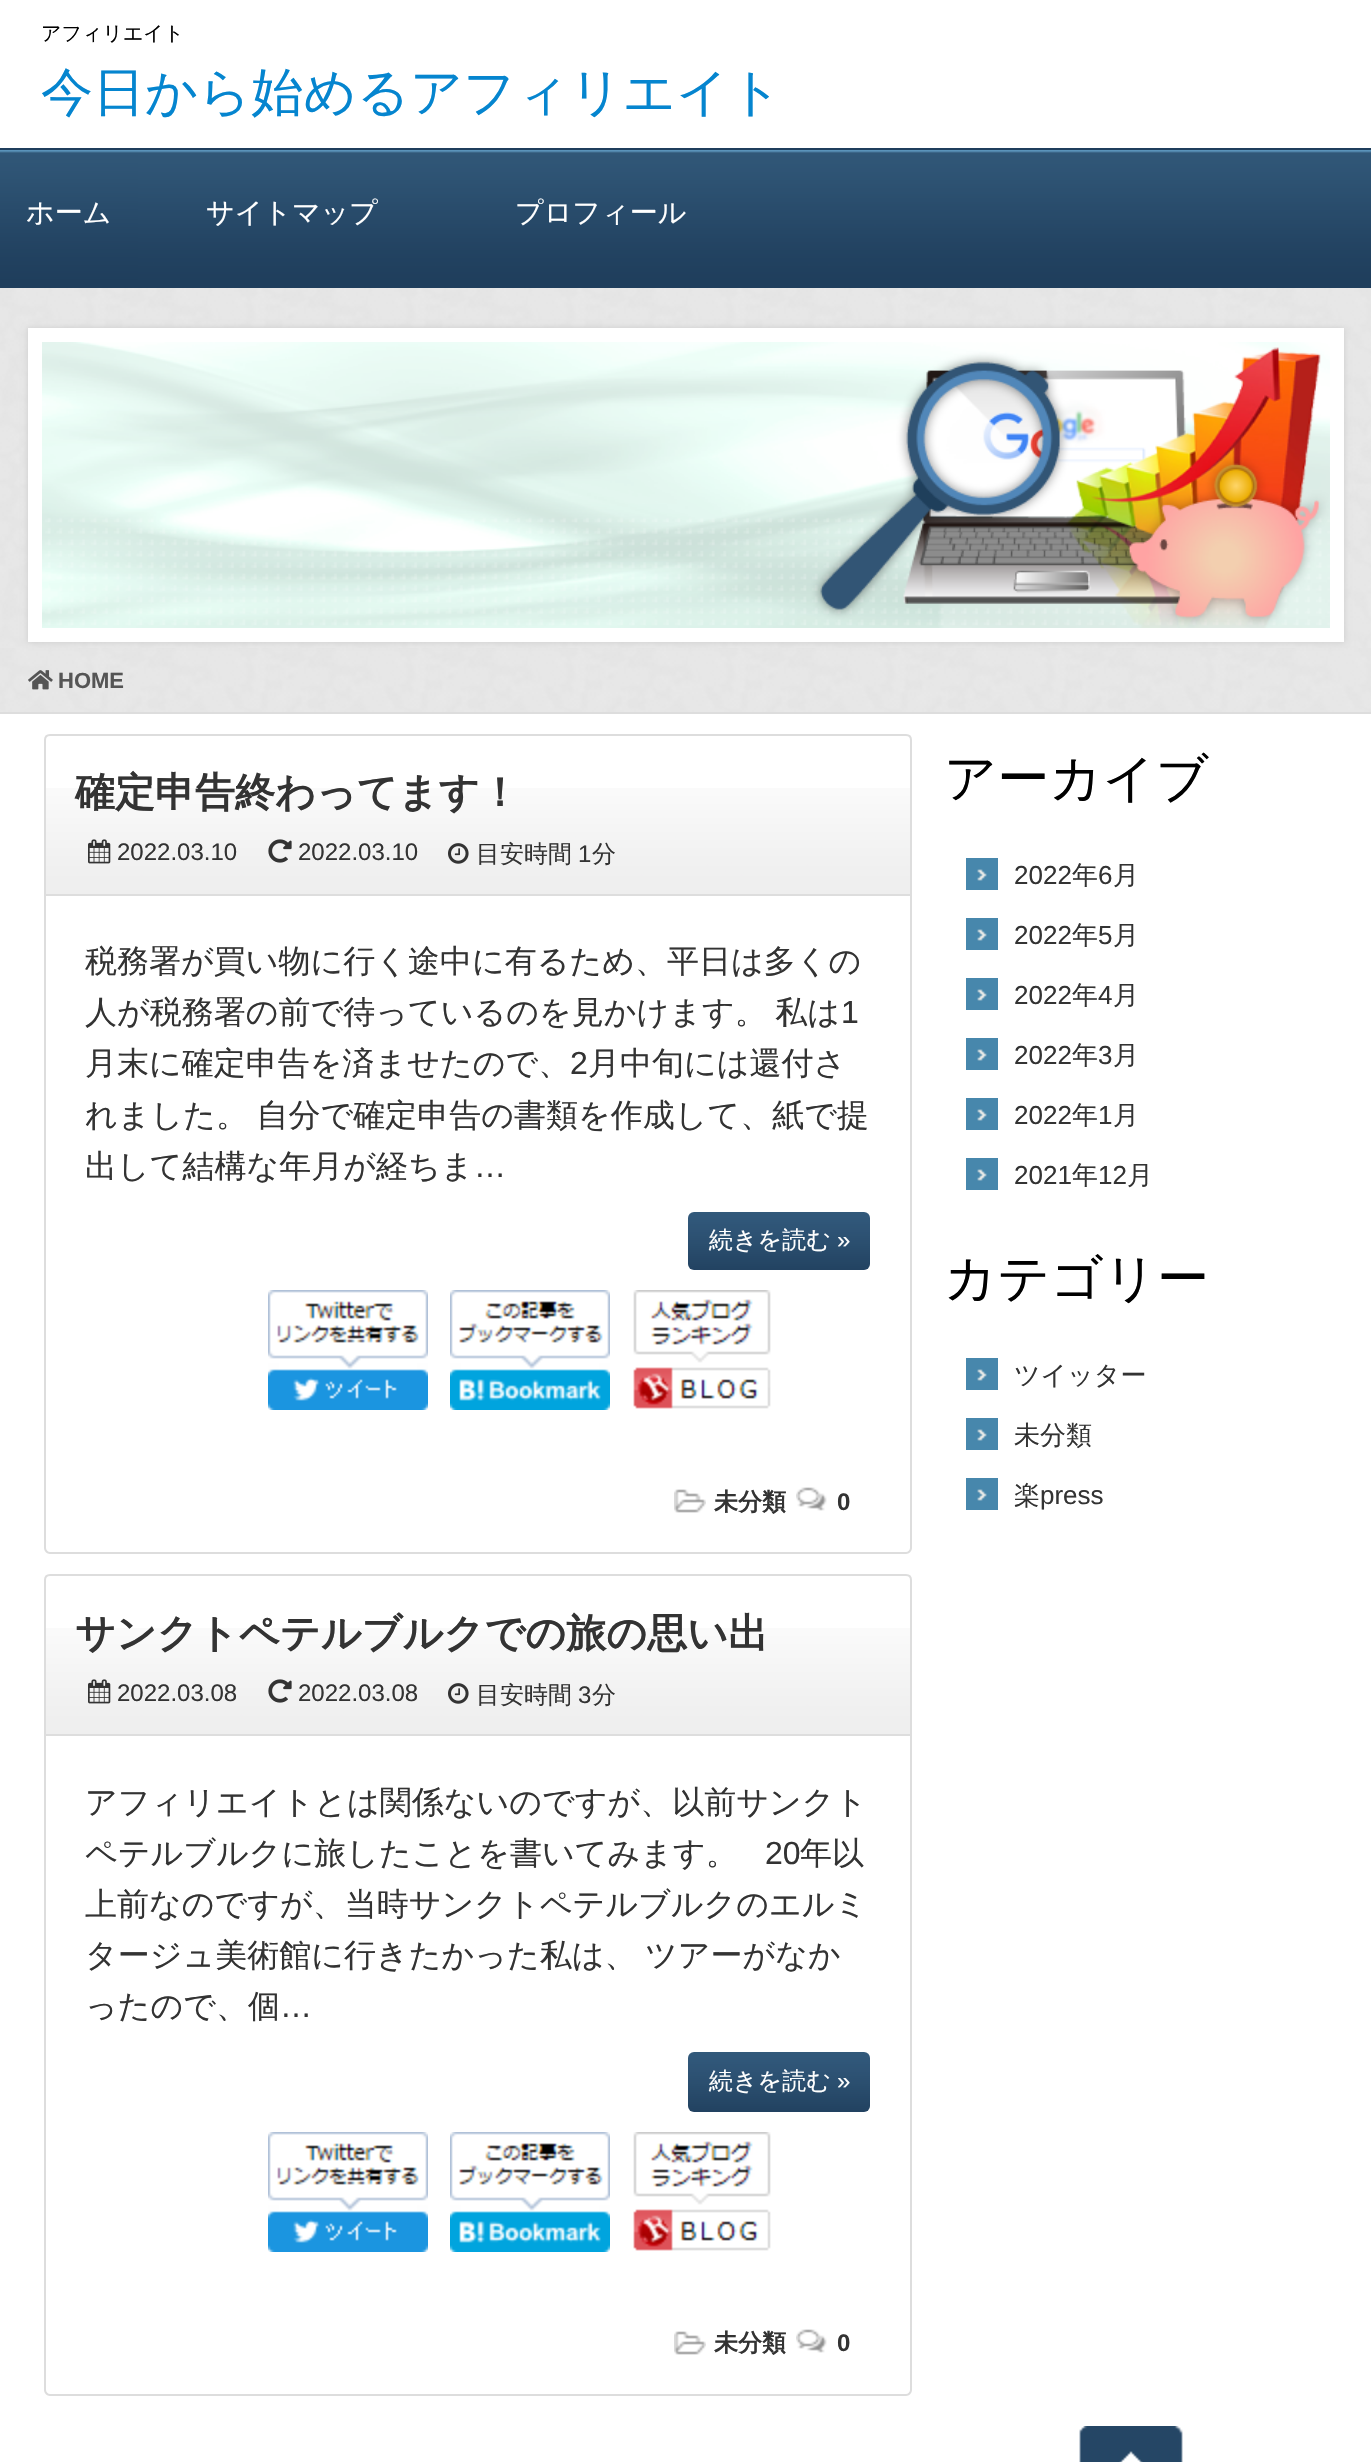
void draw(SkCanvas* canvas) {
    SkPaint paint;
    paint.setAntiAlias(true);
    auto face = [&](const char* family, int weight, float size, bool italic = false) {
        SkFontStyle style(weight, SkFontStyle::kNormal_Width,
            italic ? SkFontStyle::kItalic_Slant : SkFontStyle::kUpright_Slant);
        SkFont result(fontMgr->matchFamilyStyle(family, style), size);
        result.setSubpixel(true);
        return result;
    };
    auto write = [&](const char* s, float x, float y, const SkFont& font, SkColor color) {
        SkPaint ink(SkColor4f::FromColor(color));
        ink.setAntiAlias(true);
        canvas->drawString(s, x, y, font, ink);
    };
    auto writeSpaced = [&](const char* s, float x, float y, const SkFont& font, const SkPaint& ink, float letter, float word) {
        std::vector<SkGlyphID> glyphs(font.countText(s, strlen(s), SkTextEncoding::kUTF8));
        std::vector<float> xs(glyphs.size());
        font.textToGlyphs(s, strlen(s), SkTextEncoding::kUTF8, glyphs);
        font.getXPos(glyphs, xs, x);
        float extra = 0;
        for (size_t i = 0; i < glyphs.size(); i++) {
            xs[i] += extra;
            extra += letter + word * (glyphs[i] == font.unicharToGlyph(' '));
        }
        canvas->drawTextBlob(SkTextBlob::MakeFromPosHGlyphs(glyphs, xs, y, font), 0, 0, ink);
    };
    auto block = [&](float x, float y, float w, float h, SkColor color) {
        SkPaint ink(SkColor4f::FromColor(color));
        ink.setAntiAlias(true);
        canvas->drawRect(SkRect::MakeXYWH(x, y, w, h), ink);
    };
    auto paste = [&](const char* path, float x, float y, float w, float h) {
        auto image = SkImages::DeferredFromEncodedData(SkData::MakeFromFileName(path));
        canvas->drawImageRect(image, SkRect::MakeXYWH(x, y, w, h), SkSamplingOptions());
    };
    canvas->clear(SK_ColorWHITE);
    auto kFont1 = face("WenQuanYi Zen Hei", 500, 20);
    write("アフィリエイト", 41, 40, kFont1, SK_ColorBLACK);
    auto kFont2 = face("WenQuanYi Zen Hei", 500, 52);
    write("今日から始めるアフィリエイト", 41, 110, kFont2, SkColorSetRGB(5, 133, 207));
    block(0, 148, 1371, 2, SkColorSetRGB(31, 62, 92));
    paste("pic1.png", 754, 150, 617, 138);
    paste("pic2.png", 0, 150, 138, 138);
    auto kFont3 = face("WenQuanYi Zen Hei", 500, 28);
    write("ホーム", 26, 222, kFont3, SK_ColorWHITE);
    paste("pic3.png", 138, 150, 308, 138);
    write("サイトマップ", 206, 222, kFont3, SK_ColorWHITE);
    paste("pic3.png", 446, 150, 308, 138);
    write("プロフィール", 515, 222, kFont3, SK_ColorWHITE);
    paste("pic4.png", 0, 288, 1371, 360);
    paste("pic6.png", 0, 648, 1371, 64);
    paint.setColor(SkColorSetRGB(204, 204, 204));
    paint.setMaskFilter(SkMaskFilter::MakeBlur(kNormal_SkBlurStyle, 3));
    canvas->drawRect(SkRect::MakeXYWH(28, 328, 1316, 314), paint);
    paint.setMaskFilter(nullptr);
    block(28, 328, 1316, 314, SK_ColorWHITE);
    paste("pic5.png", 42, 342, 1288, 286);
    block(0, 712, 1371, 2, SkColorSetRGB(221, 221, 221));
    paste("pic7.png", 28, 670, 25, 20);
    auto kFont4 = face("Liberation Sans", 700, 22);
    write("HOME", 58, 688, kFont4, SkColorSetRGB(85, 85, 85));
    paste("pic8.png", 46, 788, 864, 106);
    paint.setStyle(SkPaint::kStroke_Style);
    paint.setStrokeWidth(2);
    paint.setColor(SkColorSetRGB(221, 221, 221));
    canvas->drawPath(SkPathBuilder().moveTo(50, 735).lineTo(906, 735).cubicTo(909, 735, 911, 737, 911, 740).lineTo(911, 895).lineTo(45, 895).lineTo(45, 740).cubicTo(45, 737, 47, 735, 50, 735).close().detach(), paint);
    auto kFont5 = face("WenQuanYi Zen Hei", 700, 40);
    write("確定申告終わってます！", 75, 806, kFont5, SkColorSetRGB(51, 51, 51));
    paste("pic9.png", 88, 839, 23, 25);
    auto kFont6 = face("Liberation Sans", 400, 24);
    write("2022.03.10", 117, 860, kFont6, SkColorSetRGB(51, 51, 51));
    paste("pic10.png", 268, 839, 24, 24);
    write("2022.03.10", 298, 860, kFont6, SkColorSetRGB(51, 51, 51));
    paste("pic11.png", 448, 843, 21, 21);
    auto kFont7 = face("WenQuanYi Zen Hei", 500, 24);
    write("目安時間", 476, 862, kFont7, SkColorSetRGB(51, 51, 51));
    write("1", 578, 862, kFont6, SkColorSetRGB(51, 51, 51));
    write("分", 592, 862, kFont7, SkColorSetRGB(51, 51, 51));
    block(910, 896, 2, 554, SkColorSetRGB(221, 221, 221));
    block(44, 896, 2, 554, SkColorSetRGB(221, 221, 221));
    auto kFont8 = face("WenQuanYi Zen Hei", 500, 32);
    write("税務署が買い物に行く途中に有るため、平日は多くの", 85, 972, kFont8, SkColorSetRGB(51, 51, 51));
    paint.setStyle(SkPaint::kFill_Style);
    paint.setColor(SkColorSetRGB(51, 51, 51));
    writeSpaced("人が税務署の前で待っているのを見かけます。 私は", 85, 1023, kFont8, paint, 0, -1);
    auto kFont9 = face("Liberation Sans", 400, 32);
    write("1", 841, 1023, kFont9, SkColorSetRGB(51, 51, 51));
    write("月末に確定申告を済ませたので、", 85, 1074, kFont8, SkColorSetRGB(51, 51, 51));
    write("2", 570, 1074, kFont9, SkColorSetRGB(51, 51, 51));
    write("月中旬には還付さ", 588, 1074, kFont8, SkColorSetRGB(51, 51, 51));
    writeSpaced("れました。 自分で確定申告の書類を作成して、紙で提", 85, 1126, kFont8, paint, 0, -1);
    write("出して結構な年月が経ちま", 85, 1177, kFont8, SkColorSetRGB(51, 51, 51));
    write("…", 474, 1177, kFont9, SkColorSetRGB(51, 51, 51));
    paste("pic12.png", 688, 1212, 182, 58);
    write("続きを読む", 709, 1248, kFont7, SK_ColorWHITE);
    write("»", 837, 1248, kFont6, SK_ColorWHITE);
    paste("pic13.png", 268, 1290, 160, 120);
    paste("pic14.png", 450, 1290, 160, 120);
    paste("pic15.png", 633, 1290, 138, 119);
    paint.setColor(SkColorSetRGB(221, 221, 221));
    canvas->drawPath(SkPathBuilder(SkPathFillType::kEvenOdd).moveTo(44, 1450).lineTo(912, 1450).lineTo(912, 1548).cubicTo(912, 1551, 909, 1554, 906, 1554).lineTo(50, 1554).cubicTo(47, 1554, 44, 1551, 44, 1548).close().moveTo(46, 1450).lineTo(910, 1450).lineTo(910, 1548).cubicTo(910, 1550, 908, 1552, 906, 1552).lineTo(50, 1552).cubicTo(48, 1552, 46, 1550, 46, 1548).close().detach(), paint);
    paste("pic16.png", 674, 1489, 32, 24);
    auto kFont10 = face("WenQuanYi Zen Hei", 700, 24);
    write("未分類", 714, 1510, kFont10, SkColorSetRGB(51, 51, 51));
    paste("pic17.png", 796, 1487, 31, 24);
    auto kFont11 = face("Liberation Sans", 700, 24);
    write("0", 837, 1510, kFont11, SkColorSetRGB(51, 51, 51));
    paste("pic8.png", 46, 1628, 864, 106);
    paint.setStyle(SkPaint::kStroke_Style);
    canvas->drawPath(SkPathBuilder().moveTo(50, 1575).lineTo(906, 1575).cubicTo(909, 1575, 911, 1577, 911, 1580).lineTo(911, 1735).lineTo(45, 1735).lineTo(45, 1580).cubicTo(45, 1577, 47, 1575, 50, 1575).close().detach(), paint);
    write("サンクトペテルブルクでの旅の思い出", 75, 1647, kFont5, SkColorSetRGB(51, 51, 51));
    paste("pic9.png", 88, 1679, 23, 25);
    write("2022.03.08", 117, 1701, kFont6, SkColorSetRGB(51, 51, 51));
    paste("pic10.png", 268, 1679, 24, 24);
    write("2022.03.08", 298, 1701, kFont6, SkColorSetRGB(51, 51, 51));
    paste("pic11.png", 448, 1683, 21, 21);
    write("目安時間", 476, 1703, kFont7, SkColorSetRGB(51, 51, 51));
    write("3", 578, 1703, kFont6, SkColorSetRGB(51, 51, 51));
    write("分", 592, 1703, kFont7, SkColorSetRGB(51, 51, 51));
    block(910, 1736, 2, 556, SkColorSetRGB(221, 221, 221));
    block(44, 1736, 2, 556, SkColorSetRGB(221, 221, 221));
    write("アフィリエイトとは関係ないのですが、以前サンクト", 85, 1813, kFont8, SkColorSetRGB(51, 51, 51));
    write("ペテルブルクに旅したことを書いてみます。", 85, 1864, kFont8, SkColorSetRGB(51, 51, 51));
    write("20", 765, 1864, kFont9, SkColorSetRGB(51, 51, 51));
    write("年以", 800, 1864, kFont8, SkColorSetRGB(51, 51, 51));
    write("上前なのですが、当時サンクトペテルブルクのエルミ", 85, 1915, kFont8, SkColorSetRGB(51, 51, 51));
    paint.setStyle(SkPaint::kFill_Style);
    paint.setColor(SkColorSetRGB(51, 51, 51));
    writeSpaced("タージュ美術館に行きたかった私は、 ツアーがなか", 85, 1966, kFont8, paint, 0, -1);
    write("ったので、個", 85, 2017, kFont8, SkColorSetRGB(51, 51, 51));
    write("…", 280, 2017, kFont9, SkColorSetRGB(51, 51, 51));
    paste("pic18.png", 688, 2052, 182, 60);
    write("続きを読む", 709, 2089, kFont7, SK_ColorWHITE);
    write("»", 837, 2089, kFont6, SK_ColorWHITE);
    paste("pic13.png", 268, 2132, 160, 120);
    paste("pic14.png", 450, 2132, 160, 120);
    paste("pic15.png", 633, 2132, 138, 119);
    paint.setColor(SkColorSetRGB(221, 221, 221));
    canvas->drawPath(SkPathBuilder(SkPathFillType::kEvenOdd).moveTo(44, 2292).lineTo(912, 2292).lineTo(912, 2390).cubicTo(912, 2393, 909, 2396, 906, 2396).lineTo(50, 2396).cubicTo(47, 2396, 44, 2393, 44, 2390).close().moveTo(46, 2292).lineTo(910, 2292).lineTo(910, 2390).cubicTo(910, 2392, 908, 2394, 906, 2394).lineTo(50, 2394).cubicTo(48, 2394, 46, 2392, 46, 2390).close().detach(), paint);
    paste("pic16.png", 674, 2331, 32, 24);
    write("未分類", 714, 2351, kFont10, SkColorSetRGB(51, 51, 51));
    paste("pic17.png", 796, 2329, 31, 24);
    write("0", 837, 2351, kFont11, SkColorSetRGB(51, 51, 51));
    write("アーカイブ", 944, 796, kFont2, SK_ColorBLACK);
    paste("pic19.png", 966, 858, 32, 32);
    auto kFont12 = face("Liberation Sans", 400, 26);
    write("2022", 1014, 884, kFont12, SkColorSetRGB(51, 51, 51));
    auto kFont13 = face("WenQuanYi Zen Hei", 500, 26);
    write("年", 1072, 884, kFont13, SkColorSetRGB(51, 51, 51));
    write("6", 1098, 884, kFont12, SkColorSetRGB(51, 51, 51));
    write("月", 1113, 884, kFont13, SkColorSetRGB(51, 51, 51));
    paste("pic19.png", 966, 918, 32, 32);
    write("2022", 1014, 944, kFont12, SkColorSetRGB(51, 51, 51));
    write("年", 1072, 944, kFont13, SkColorSetRGB(51, 51, 51));
    write("5", 1098, 944, kFont12, SkColorSetRGB(51, 51, 51));
    write("月", 1113, 944, kFont13, SkColorSetRGB(51, 51, 51));
    paste("pic19.png", 966, 978, 32, 32);
    write("2022", 1014, 1004, kFont12, SkColorSetRGB(51, 51, 51));
    write("年", 1072, 1004, kFont13, SkColorSetRGB(51, 51, 51));
    write("4", 1098, 1004, kFont12, SkColorSetRGB(51, 51, 51));
    write("月", 1113, 1004, kFont13, SkColorSetRGB(51, 51, 51));
    paste("pic19.png", 966, 1038, 32, 32);
    write("2022", 1014, 1064, kFont12, SkColorSetRGB(51, 51, 51));
    write("年", 1072, 1064, kFont13, SkColorSetRGB(51, 51, 51));
    write("3", 1098, 1064, kFont12, SkColorSetRGB(51, 51, 51));
    write("月", 1113, 1064, kFont13, SkColorSetRGB(51, 51, 51));
    paste("pic19.png", 966, 1098, 32, 32);
    write("2022", 1014, 1124, kFont12, SkColorSetRGB(51, 51, 51));
    write("年", 1072, 1124, kFont13, SkColorSetRGB(51, 51, 51));
    write("1", 1098, 1124, kFont12, SkColorSetRGB(51, 51, 51));
    write("月", 1113, 1124, kFont13, SkColorSetRGB(51, 51, 51));
    paste("pic19.png", 966, 1158, 32, 32);
    write("2021", 1014, 1184, kFont12, SkColorSetRGB(51, 51, 51));
    write("年", 1072, 1184, kFont13, SkColorSetRGB(51, 51, 51));
    write("12", 1098, 1184, kFont12, SkColorSetRGB(51, 51, 51));
    write("月", 1127, 1184, kFont13, SkColorSetRGB(51, 51, 51));
    write("カテゴリー", 944, 1296, kFont2, SK_ColorBLACK);
    paste("pic19.png", 966, 1358, 32, 32);
    write("ツイッター", 1014, 1384, kFont13, SkColorSetRGB(51, 51, 51));
    paste("pic19.png", 966, 1418, 32, 32);
    write("未分類", 1014, 1444, kFont13, SkColorSetRGB(51, 51, 51));
    paste("pic19.png", 966, 1478, 32, 32);
    write("楽", 1014, 1504, kFont13, SkColorSetRGB(51, 51, 51));
    write("press", 1040, 1504, kFont12, SkColorSetRGB(51, 51, 51));
    paste("pic20.png", 1079, 2426, 104, 36);
}
